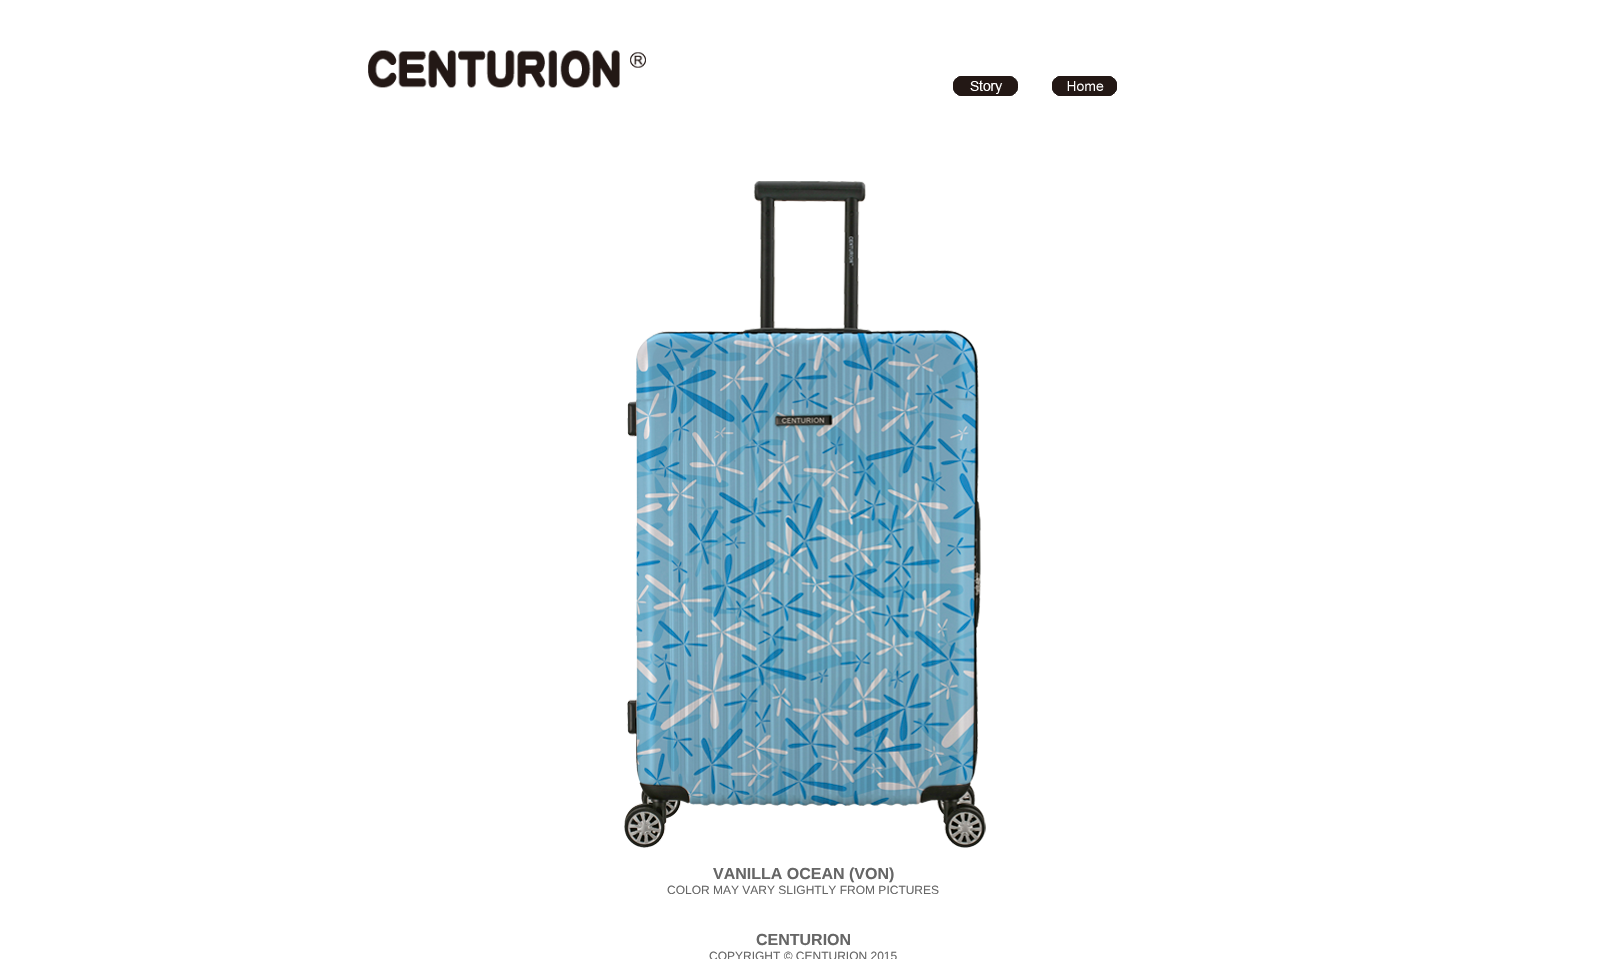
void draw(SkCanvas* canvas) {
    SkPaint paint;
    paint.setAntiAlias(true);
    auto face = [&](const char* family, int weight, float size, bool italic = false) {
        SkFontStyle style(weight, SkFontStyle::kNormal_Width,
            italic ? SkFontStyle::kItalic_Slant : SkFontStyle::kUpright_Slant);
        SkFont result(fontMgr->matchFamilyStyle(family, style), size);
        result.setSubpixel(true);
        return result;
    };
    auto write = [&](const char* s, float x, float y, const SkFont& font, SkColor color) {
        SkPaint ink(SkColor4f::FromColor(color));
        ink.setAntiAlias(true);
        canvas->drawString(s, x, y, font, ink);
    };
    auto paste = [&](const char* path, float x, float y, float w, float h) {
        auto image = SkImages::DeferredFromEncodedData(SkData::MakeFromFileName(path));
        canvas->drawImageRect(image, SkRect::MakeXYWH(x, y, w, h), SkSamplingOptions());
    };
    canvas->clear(SK_ColorWHITE);
    paste("pic1.png", 368, 50, 278, 38);
    paste("pic2.png", 953, 76, 65, 20);
    paste("pic3.png", 1052, 76, 65, 20);
    paste("pic4.png", 624, 181, 362, 667);
    auto kFont1 = face("Liberation Sans", 700, 16);
    write("VANILLA OCEAN (VON)", 713, 879, kFont1, SkColorSetRGB(102, 102, 102));
    auto kFont2 = face("Liberation Sans", 400, 12);
    write("COLOR MAY VARY SLIGHTLY FROM PICTURES", 667, 894, kFont2, SkColorSetRGB(102, 102, 102));
    write("CENTURION", 756, 945, kFont1, SkColorSetRGB(102, 102, 102));
    write("COPYRIGHT © CENTURION 2015", 709, 960, kFont2, SkColorSetRGB(102, 102, 102));
}
